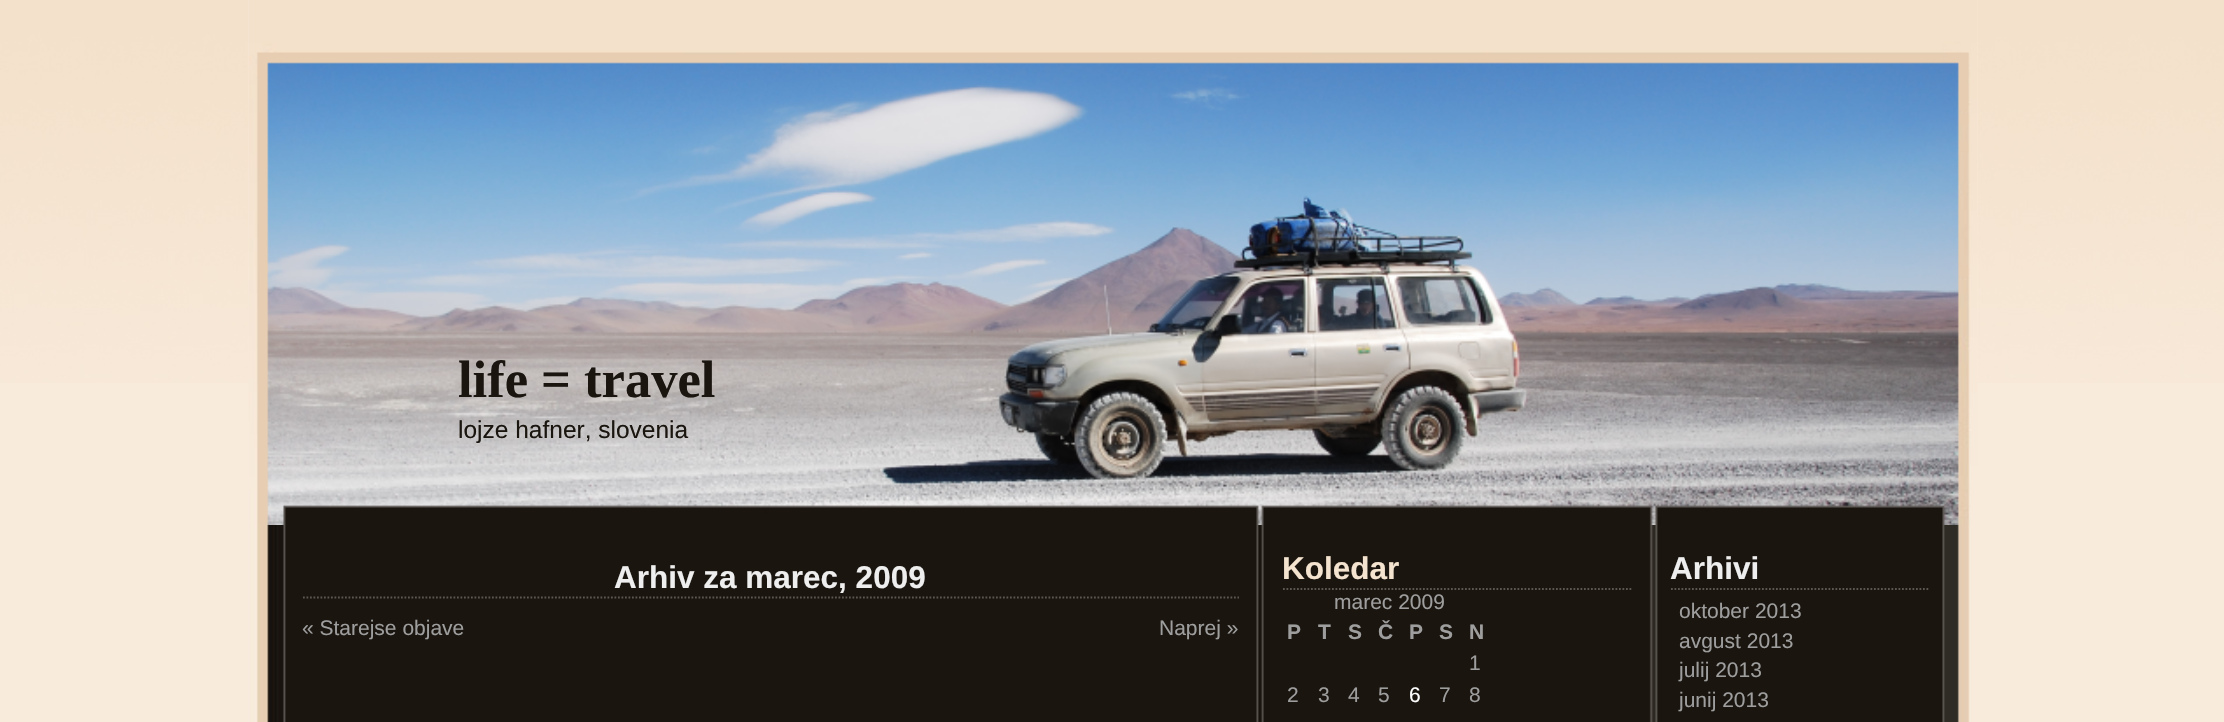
void draw(SkCanvas* canvas) {
    SkPaint paint;
    paint.setAntiAlias(true);
    auto face = [&](const char* family, int weight, float size, bool italic = false) {
        SkFontStyle style(weight, SkFontStyle::kNormal_Width,
            italic ? SkFontStyle::kItalic_Slant : SkFontStyle::kUpright_Slant);
        SkFont result(fontMgr->matchFamilyStyle(family, style), size);
        result.setSubpixel(true);
        return result;
    };
    auto write = [&](const char* s, float x, float y, const SkFont& font, SkColor color) {
        SkPaint ink(SkColor4f::FromColor(color));
        ink.setAntiAlias(true);
        canvas->drawString(s, x, y, font, ink);
    };
    auto paste = [&](const char* path, float x, float y, float w, float h) {
        auto image = SkImages::DeferredFromEncodedData(SkData::MakeFromFileName(path));
        canvas->drawImageRect(image, SkRect::MakeXYWH(x, y, w, h), SkSamplingOptions());
    };
    canvas->clear(SkColorSetRGB(248, 235, 220));
    paste("pic1.png", 0, 0, 2224, 383);
    paste("pic2.png", 248, 0, 1730, 722);
    paste("pic3.png", 248, 0, 1730, 525);
    auto kFont1 = face("Liberation Serif", 700, 52.5f);
    write("life = travel", 458, 397, kFont1, SkColorSetRGB(26, 21, 15));
    auto kFont2 = face("Liberation Sans", 400, 24.5f);
    write("lojze hafner, slovenia", 458, 438, kFont2, SkColorSetRGB(26, 21, 15));
    paint.setStyle(SkPaint::kStroke_Style);
    paint.setStrokeWidth(1.8f);
    paint.setColor(SkColorSetRGB(92, 87, 81));
    paint.setPathEffect(SkDashPathEffect::Make({{1.75f, 1.75f}}, 0));
    canvas->drawPath(SkPathBuilder().moveTo(303, 597.5f).lineTo(1239, 597.5f).detach(), paint);
    paint.setPathEffect(nullptr);
    auto kFont3 = face("Liberation Sans", 700, 31.5f);
    write("Arhiv za marec, 2009", 614, 588, kFont3, SkColorSetRGB(238, 238, 238));
    auto kFont4 = face("Liberation Sans", 400, 21);
    write("« Starejse objave", 302, 635, kFont4, SkColorSetRGB(158, 158, 158));
    write("Naprej »", 1159, 635, kFont4, SkColorSetRGB(158, 158, 158));
    paint.setPathEffect(SkDashPathEffect::Make({{1.75f, 1.75f}}, 0));
    canvas->drawPath(SkPathBuilder().moveTo(1283, 589).lineTo(1633, 589).detach(), paint);
    paint.setPathEffect(nullptr);
    write("Koledar", 1282, 579, kFont3, SkColorSetRGB(244, 227, 207));
    write("marec 2009", 1334, 609, kFont4, SkColorSetRGB(158, 158, 158));
    auto kFont5 = face("Liberation Sans", 700, 21);
    write("P", 1287, 639, kFont5, SkColorSetRGB(158, 158, 158));
    write("T", 1318, 639, kFont5, SkColorSetRGB(158, 158, 158));
    write("S", 1348, 639, kFont5, SkColorSetRGB(158, 158, 158));
    write("Č", 1378, 639, kFont5, SkColorSetRGB(158, 158, 158));
    write("P", 1409, 639, kFont5, SkColorSetRGB(158, 158, 158));
    write("S", 1439, 639, kFont5, SkColorSetRGB(158, 158, 158));
    write("N", 1469, 639, kFont5, SkColorSetRGB(158, 158, 158));
    write("1", 1469, 670, kFont4, SkColorSetRGB(158, 158, 158));
    write("2", 1287, 702, kFont4, SkColorSetRGB(158, 158, 158));
    write("3", 1318, 702, kFont4, SkColorSetRGB(158, 158, 158));
    write("4", 1348, 702, kFont4, SkColorSetRGB(158, 158, 158));
    write("5", 1378, 702, kFont4, SkColorSetRGB(158, 158, 158));
    write("6", 1409, 702, kFont4, SK_ColorWHITE);
    write("7", 1439, 702, kFont4, SkColorSetRGB(158, 158, 158));
    write("8", 1469, 702, kFont4, SkColorSetRGB(158, 158, 158));
    paint.setPathEffect(SkDashPathEffect::Make({{1.75f, 1.75f}}, 0));
    canvas->drawPath(SkPathBuilder().moveTo(1671, 589).lineTo(1930, 589).detach(), paint);
    paint.setPathEffect(nullptr);
    write("Arhivi", 1670, 579, kFont3, SkColorSetRGB(238, 238, 238));
    write("oktober 2013", 1679, 618, kFont4, SkColorSetRGB(158, 158, 158));
    write("avgust 2013", 1679, 648, kFont4, SkColorSetRGB(158, 158, 158));
    write("julij 2013", 1679, 677, kFont4, SkColorSetRGB(158, 158, 158));
    write("junij 2013", 1679, 707, kFont4, SkColorSetRGB(158, 158, 158));
}
